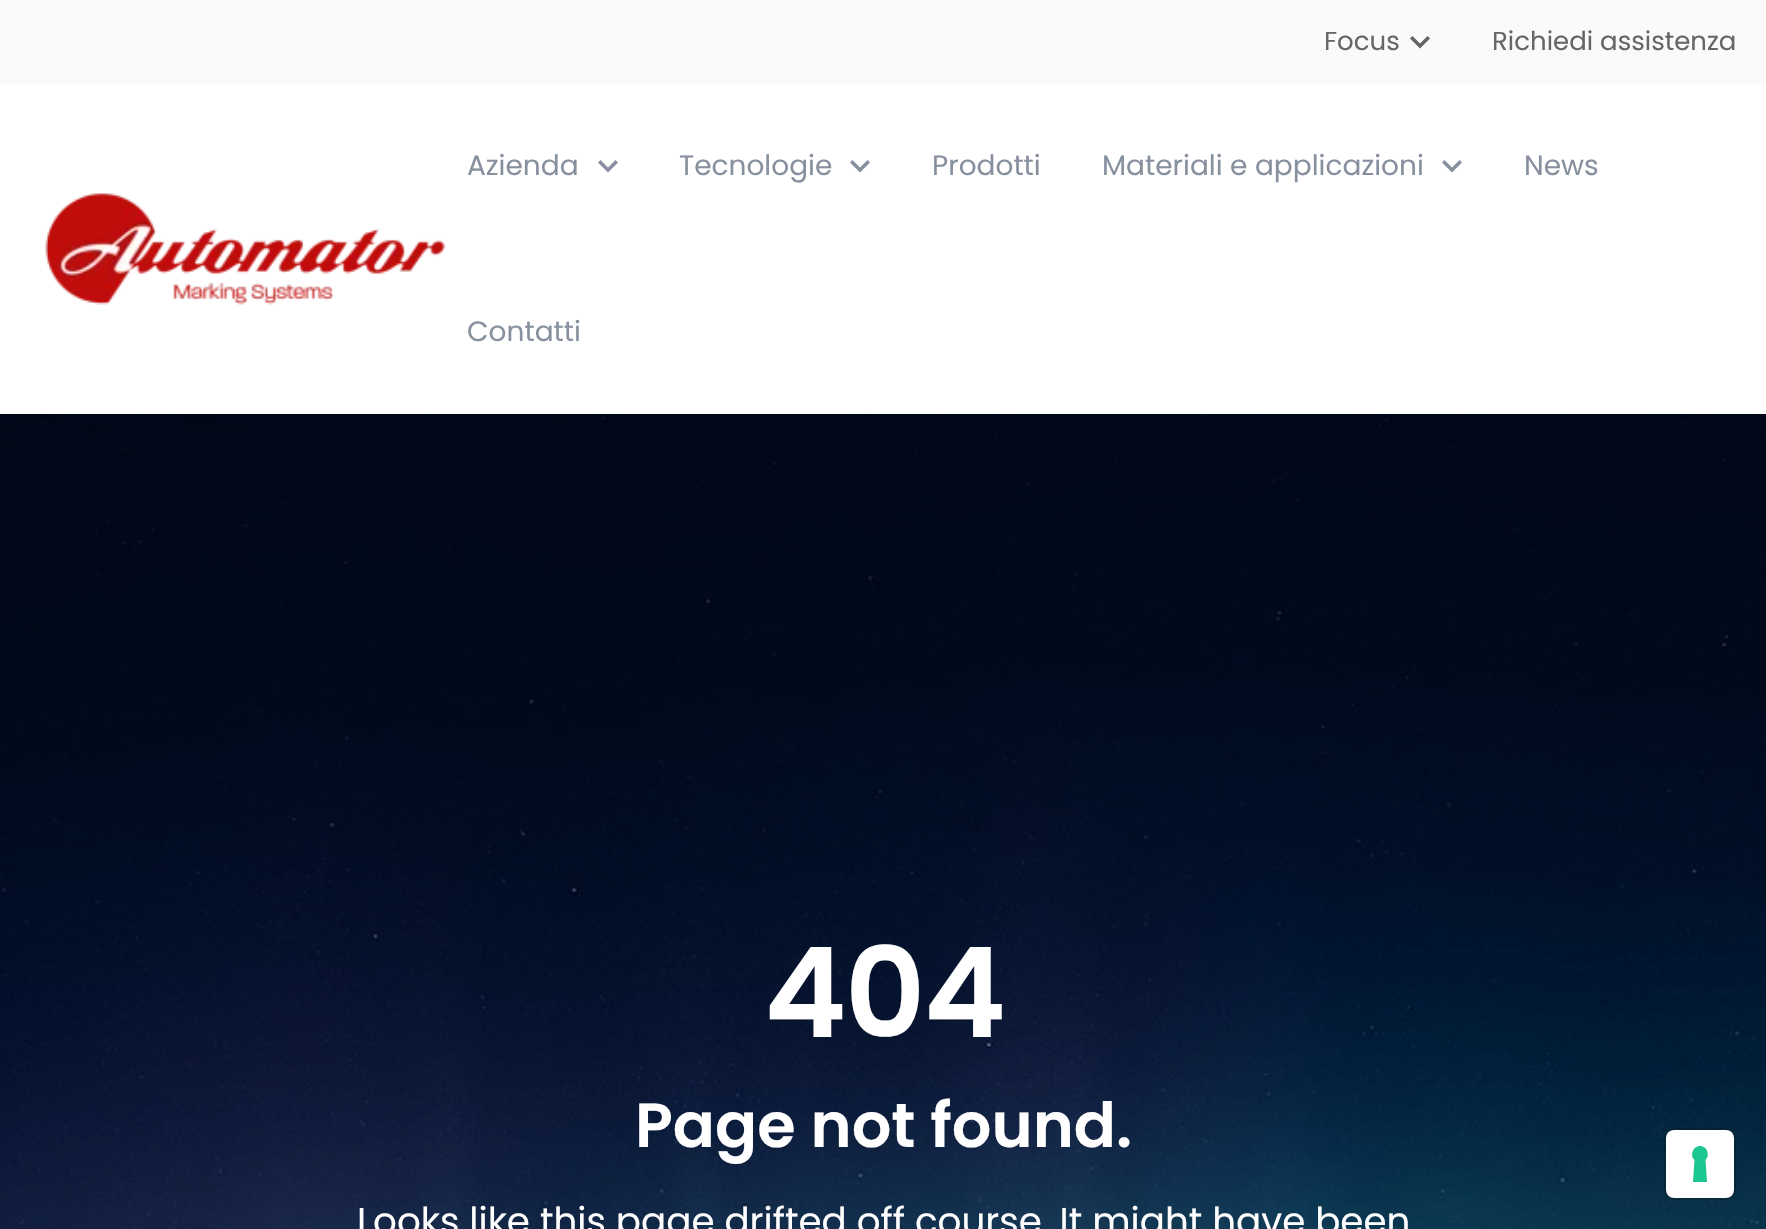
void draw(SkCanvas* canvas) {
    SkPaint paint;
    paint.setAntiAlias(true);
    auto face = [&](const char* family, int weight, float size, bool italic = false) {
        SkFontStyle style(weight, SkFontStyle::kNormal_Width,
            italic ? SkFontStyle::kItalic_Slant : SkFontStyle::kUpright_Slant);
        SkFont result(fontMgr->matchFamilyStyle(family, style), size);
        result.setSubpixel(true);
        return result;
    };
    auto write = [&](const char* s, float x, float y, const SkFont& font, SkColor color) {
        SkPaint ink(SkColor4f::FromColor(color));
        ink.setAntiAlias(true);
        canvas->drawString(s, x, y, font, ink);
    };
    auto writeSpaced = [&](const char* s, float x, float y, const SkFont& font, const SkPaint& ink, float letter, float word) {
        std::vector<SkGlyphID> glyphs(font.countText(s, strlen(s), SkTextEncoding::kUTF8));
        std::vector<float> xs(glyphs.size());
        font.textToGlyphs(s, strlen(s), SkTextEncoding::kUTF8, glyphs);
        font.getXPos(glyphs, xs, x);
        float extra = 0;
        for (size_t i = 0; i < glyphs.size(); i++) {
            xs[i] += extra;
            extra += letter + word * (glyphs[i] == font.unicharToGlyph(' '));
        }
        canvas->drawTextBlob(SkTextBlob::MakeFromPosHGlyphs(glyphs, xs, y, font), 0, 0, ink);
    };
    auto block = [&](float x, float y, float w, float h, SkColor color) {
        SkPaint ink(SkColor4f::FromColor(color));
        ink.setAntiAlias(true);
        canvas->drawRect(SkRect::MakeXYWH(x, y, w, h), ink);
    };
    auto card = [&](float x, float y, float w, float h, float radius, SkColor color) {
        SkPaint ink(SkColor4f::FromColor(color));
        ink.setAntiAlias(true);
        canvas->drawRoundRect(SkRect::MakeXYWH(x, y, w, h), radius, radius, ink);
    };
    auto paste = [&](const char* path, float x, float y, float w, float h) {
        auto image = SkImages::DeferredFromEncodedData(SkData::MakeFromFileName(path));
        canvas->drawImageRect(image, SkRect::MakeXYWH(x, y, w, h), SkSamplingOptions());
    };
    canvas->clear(SK_ColorWHITE);
    block(0, 0, 1766, 84, SkColorSetRGB(250, 250, 250));
    auto kFont1 = face("Poppins", 400, 26);
    write("Focus", 1324, 50, kFont1, SkColorSetRGB(102, 102, 102));
    paint.setColor(SkColorSetRGB(102, 102, 102));
    canvas->drawPath(SkPathBuilder(SkPathFillType::kEvenOdd).moveTo(1427.5f, 36).lineTo(1420, 43.5f).lineTo(1412.5f, 36).lineTo(1410, 38.5f).lineTo(1420, 48.5f).lineTo(1430, 38.5f).close().detach(), paint);
    write("Richiedi assistenza", 1492, 50, kFont1, SkColorSetRGB(102, 102, 102));
    paste("pic1.png", 45, 193, 401, 112);
    auto kFont2 = face("Poppins", 400, 28);
    write("Azienda", 467, 175, kFont2, SkColorSetRGB(135, 144, 158));
    paint.setColor(SkColorSetRGB(135, 144, 158));
    canvas->drawPath(SkPathBuilder(SkPathFillType::kEvenOdd).moveTo(615.5f, 160).lineTo(608, 167.5f).lineTo(600.5f, 160).lineTo(598, 162.5f).lineTo(608, 172.5f).lineTo(618, 162.5f).close().detach(), paint);
    write("Tecnologie", 679, 175, kFont2, SkColorSetRGB(135, 144, 158));
    canvas->drawPath(SkPathBuilder(SkPathFillType::kEvenOdd).moveTo(867.5f, 160).lineTo(860, 167.5f).lineTo(852.5f, 160).lineTo(850, 162.5f).lineTo(860, 172.5f).lineTo(870, 162.5f).close().detach(), paint);
    write("Prodotti", 932, 175, kFont2, SkColorSetRGB(135, 144, 158));
    write("Materiali e applicazioni", 1102, 175, kFont2, SkColorSetRGB(135, 144, 158));
    canvas->drawPath(SkPathBuilder(SkPathFillType::kEvenOdd).moveTo(1459.5f, 160).lineTo(1452, 167.5f).lineTo(1444.5f, 160).lineTo(1442, 162.5f).lineTo(1452, 172.5f).lineTo(1462, 162.5f).close().detach(), paint);
    write("News", 1524, 175, kFont2, SkColorSetRGB(135, 144, 158));
    write("Contatti", 467, 341, kFont2, SkColorSetRGB(135, 144, 158));
    paste("pic2.png", 0, 414, 1766, 815);
    auto kFont3 = face("Poppins", 600, 125);
    paint.setColor(SK_ColorWHITE);
    writeSpaced("404", 764, 1037, kFont3, paint, -2, 0);
    auto kFont4 = face("Poppins", 600, 62.25f);
    write("Page not found.", 635, 1147, kFont4, SK_ColorWHITE);
    auto kFont5 = face("Poppins", 400, 37.25f);
    write("Looks like this page drifted off course. It might have been", 357, 1234, kFont5, SK_ColorWHITE);
    paint.setStyle(SkPaint::kStroke_Style);
    paint.setStrokeWidth(2);
    paint.setColor(SkColorSetARGB(38, 0, 0, 0));
    canvas->drawRoundRect(SkRect::MakeXYWH(1665, 1129, 70, 70), 9, 9, paint);
    card(1666, 1130, 68, 68, 8, SK_ColorWHITE);
    paint.setStyle(SkPaint::kFill_Style);
    paint.setColor(SkColorSetRGB(28, 198, 145));
    canvas->drawPath(SkPathBuilder(SkPathFillType::kEvenOdd).moveTo(1700, 1146).cubicTo(1707, 1146, 1710.5f, 1155.5f, 1705.5f, 1160).lineTo(1707, 1182).lineTo(1693, 1182).lineTo(1694.5f, 1160).cubicTo(1689.5f, 1155.5f, 1693, 1146, 1700, 1146).close().detach(), paint);
}
